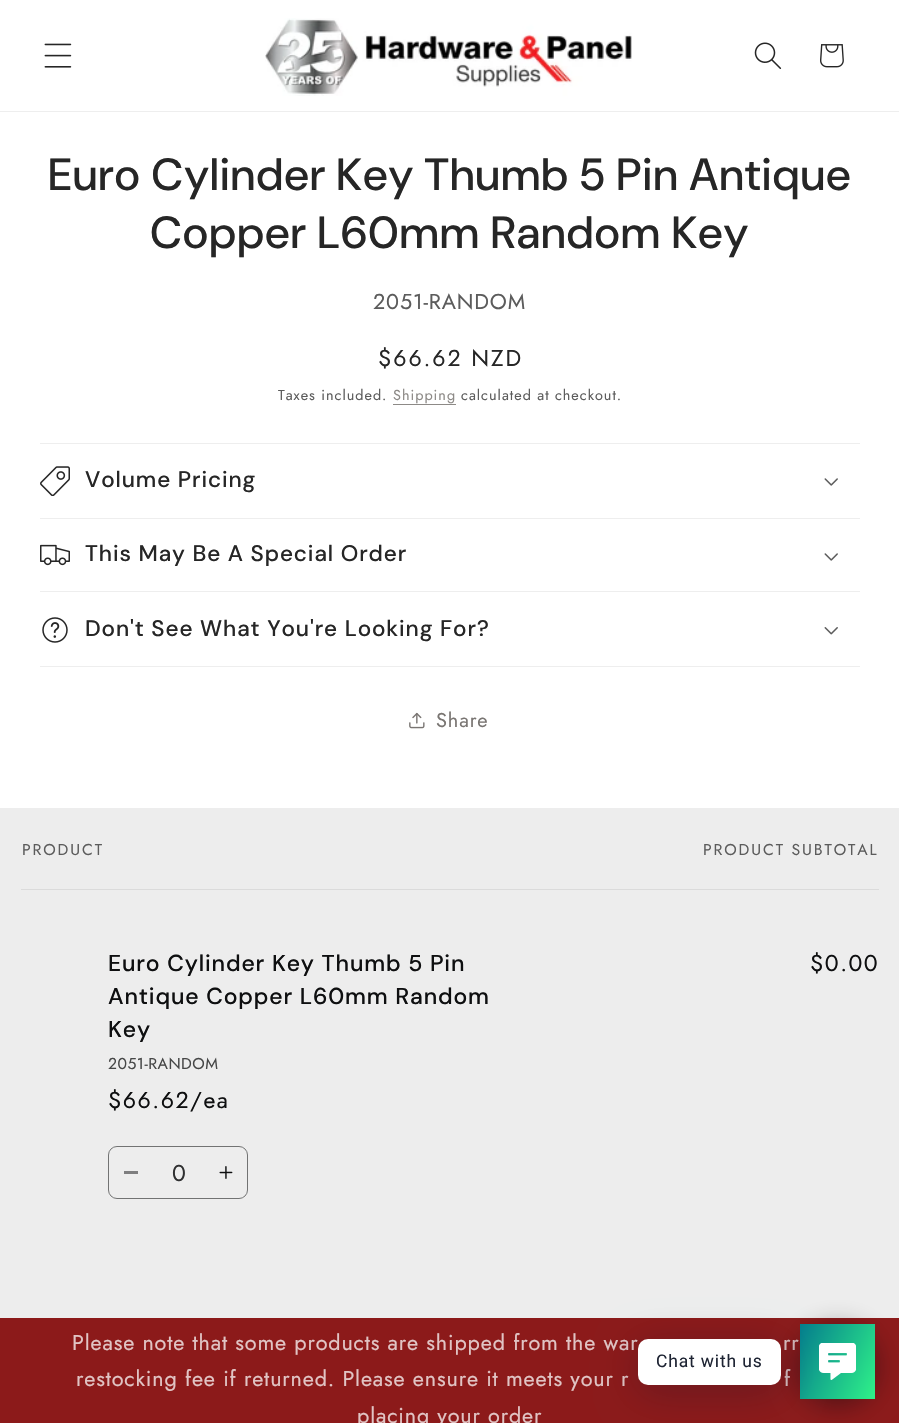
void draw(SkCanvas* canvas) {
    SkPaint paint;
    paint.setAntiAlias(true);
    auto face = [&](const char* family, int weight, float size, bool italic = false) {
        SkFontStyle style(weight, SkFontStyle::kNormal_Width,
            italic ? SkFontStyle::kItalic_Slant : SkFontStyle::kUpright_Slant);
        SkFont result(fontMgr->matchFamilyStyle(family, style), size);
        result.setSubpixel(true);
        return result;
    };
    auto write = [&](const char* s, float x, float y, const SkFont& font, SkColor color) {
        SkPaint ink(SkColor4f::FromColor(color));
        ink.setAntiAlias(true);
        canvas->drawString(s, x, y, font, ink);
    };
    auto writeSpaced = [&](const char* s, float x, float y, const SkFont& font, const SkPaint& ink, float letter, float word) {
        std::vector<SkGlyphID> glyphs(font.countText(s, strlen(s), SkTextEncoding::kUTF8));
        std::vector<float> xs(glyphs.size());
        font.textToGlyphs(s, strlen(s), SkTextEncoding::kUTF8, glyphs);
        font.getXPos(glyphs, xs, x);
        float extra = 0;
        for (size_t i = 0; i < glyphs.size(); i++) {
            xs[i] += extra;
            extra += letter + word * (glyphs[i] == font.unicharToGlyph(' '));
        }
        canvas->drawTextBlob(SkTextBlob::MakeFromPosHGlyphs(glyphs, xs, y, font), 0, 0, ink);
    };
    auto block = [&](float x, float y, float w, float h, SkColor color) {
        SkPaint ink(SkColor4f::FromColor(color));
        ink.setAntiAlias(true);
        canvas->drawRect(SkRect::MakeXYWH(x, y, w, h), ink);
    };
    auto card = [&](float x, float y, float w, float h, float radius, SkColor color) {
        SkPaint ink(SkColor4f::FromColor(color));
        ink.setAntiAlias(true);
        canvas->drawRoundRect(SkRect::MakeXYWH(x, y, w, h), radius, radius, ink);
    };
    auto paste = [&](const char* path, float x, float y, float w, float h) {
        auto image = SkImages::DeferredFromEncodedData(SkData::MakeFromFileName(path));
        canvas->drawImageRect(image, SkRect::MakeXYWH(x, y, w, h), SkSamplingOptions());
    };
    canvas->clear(SK_ColorWHITE);
    block(0, 111, 899, 1, SkColorSetRGB(238, 238, 238));
    paste("pic1.png", 44, 43, 28, 25);
    paste("pic2.png", 265, 18, 367, 78);
    paste("pic3.png", 754, 42, 28, 27);
    paste("pic4.png", 820, 44, 24, 24);
    auto kFont1 = face("DM Sans", 500, 45);
    paint.setColor(SkColorSetRGB(38, 38, 38));
    writeSpaced("Euro Cylinder Key Thumb 5 Pin Antique", 48, 190, kFont1, paint, 0.9f, 0);
    writeSpaced("Copper L60mm Random Key", 150, 248, kFont1, paint, 0.9f, 0);
    auto kFont2 = face("Jost", 400, 21.55f);
    paint.setColor(SkColorSetRGB(92, 92, 92));
    writeSpaced("2051-RANDOM", 373, 309, kFont2, paint, 0.85f, 0);
    auto kFont3 = face("Jost", 400, 23);
    paint.setColor(SkColorSetRGB(38, 38, 38));
    writeSpaced("$66.62 NZD", 378, 366, kFont3, paint, 1.9f, 0);
    auto kFont4 = face("Jost", 400, 14.4f);
    paint.setColor(SkColorSetRGB(92, 92, 92));
    writeSpaced("Taxes included.", 278, 400, kFont4, paint, 1, 0);
    paint.setColor(SkColorSetRGB(141, 138, 135));
    writeSpaced("Shipping", 393, 400, kFont4, paint, 1, 0);
    block(393, 404, 63, 1, SkColorSetRGB(141, 138, 135));
    paint.setColor(SkColorSetRGB(92, 92, 92));
    writeSpaced("calculated at checkout.", 461, 400, kFont4, paint, 1, 0);
    block(40, 443, 820, 1, SkColorSetRGB(238, 238, 238));
    block(40, 518, 820, 1, SkColorSetRGB(238, 238, 238));
    paste("pic5.png", 40, 466, 30, 30);
    auto kFont5 = face("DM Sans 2", 500, 22.5f);
    paint.setColor(SkColorSetRGB(38, 38, 38));
    writeSpaced("Volume Pricing", 85, 487, kFont5, paint, 0.9f, 0);
    paste("pic6.png", 824, 478, 14, 8);
    block(40, 591, 820, 1, SkColorSetRGB(238, 238, 238));
    paste("pic7.png", 40, 544, 30, 22);
    writeSpaced("This May Be A Special Order", 85, 561, kFont5, paint, 0.9f, 0);
    paste("pic6.png", 824, 553, 14, 8);
    block(40, 666, 820, 1, SkColorSetRGB(238, 238, 238));
    paste("pic8.png", 42, 617, 26, 26);
    writeSpaced("Don't See What You're Looking For?", 85, 636, kFont5, paint, 0.9f, 0);
    paste("pic9.png", 824, 627, 14, 8);
    paste("pic10.png", 409, 712, 16, 17);
    auto kFont6 = face("Jost", 400, 20);
    paint.setColor(SkColorSetRGB(121, 117, 114));
    writeSpaced("Share", 436, 727, kFont6, paint, 0.85f, 0);
    block(0, 808, 899, 510, SkColorSetRGB(237, 237, 237));
    block(21, 889, 858, 1, SkColorSetRGB(219, 219, 219));
    auto kFont7 = face("Jost", 400, 15.75f);
    paint.setColor(SkColorSetRGB(92, 92, 92));
    writeSpaced("PRODUCT", 22, 855, kFont7, paint, 1.9f, 0);
    writeSpaced("PRODUCT SUBTOTAL", 703, 855, kFont7, paint, 1.9f, 0);
    auto kFont8 = face("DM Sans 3", 500, 23);
    paint.setColor(SkColorSetRGB(14, 15, 16));
    writeSpaced("Euro Cylinder Key Thumb 5 Pin", 108, 971, kFont8, paint, 0.85f, 0);
    writeSpaced("Antique Copper L60mm Random", 108, 1004, kFont8, paint, 0.85f, 0);
    writeSpaced("Key", 108, 1037, kFont8, paint, 0.85f, 0);
    paint.setColor(SkColorSetRGB(70, 71, 71));
    writeSpaced("2051-RANDOM", 108, 1069, kFont7, paint, 0.5f, 0);
    paint.setColor(SkColorSetRGB(14, 15, 16));
    writeSpaced("$66.62/ea", 108, 1108, kFont3, paint, 1.5f, 0);
    writeSpaced("$0.00", 810, 971, kFont3, paint, 1.5f, 0);
    block(124, 1171, 14, 3, SkColorSetRGB(126, 126, 127));
    paste("pic11.png", 219, 1166, 14, 13);
    paint.setStyle(SkPaint::kStroke_Style);
    paint.setStrokeWidth(1);
    paint.setColor(SkColorSetRGB(114, 115, 115));
    canvas->drawRoundRect(SkRect::MakeXYWH(108.5f, 1146.5f, 139, 52), 8.5f, 8.5f, paint);
    write("0", 172, 1181, kFont3, SkColorSetRGB(47, 48, 49));
    block(0, 1318, 899, 105, SkColorSetRGB(140, 26, 26));
    paint.setStyle(SkPaint::kFill_Style);
    paint.setColor(SkColorSetRGB(225, 196, 196));
    writeSpaced("Please note that some products are shipped from the war", 72, 1350, kFont2, paint, 0.85f, 0);
    writeSpaced("rr", 783, 1350, kFont2, paint, 0.85f, 0);
    writeSpaced("restocking fee if returned. Please ensure it meets your r", 76, 1386, kFont2, paint, 0.85f, 0);
    writeSpaced("f", 784, 1386, kFont2, paint, 0.85f, 0);
    writeSpaced("placing your order", 357, 1423, kFont2, paint, 0.85f, 0);
    paint.setColor(SkColorSetARGB(128, 2, 6, 16));
    paint.setMaskFilter(SkMaskFilter::MakeBlur(kNormal_SkBlurStyle, 15));
    canvas->drawRoundRect(SkRect::MakeXYWH(800, 1329, 75, 75), 37.5f, 37.5f, paint);
    paint.setMaskFilter(nullptr);
    {
        const SkColor colors[] = {SkColorSetRGB(4, 124, 141), SkColorSetRGB(47, 242, 137)};
        const float stops[] = {0, 1};
        const SkPoint ends[] = {{792, 1340}, {883, 1382}};
        paint.setShader(SkGradientShader::MakeLinear(ends, colors, stops, 2, SkTileMode::kClamp));
        paint.setAlpha(255);
    }
    canvas->drawRect(SkRect::MakeXYWH(800, 1324, 75, 75), paint);
    paint.setShader(nullptr);
    paint.setColor(SkColorSetARGB(61, 0, 18, 46));
    paint.setMaskFilter(SkMaskFilter::MakeBlur(kNormal_SkBlurStyle, 20));
    canvas->drawRoundRect(SkRect::MakeXYWH(638, 1346, 143, 47), 10, 10, paint);
    paint.setMaskFilter(nullptr);
    card(638, 1339, 143, 46, 10, SK_ColorWHITE);
    auto kFont9 = face("Roboto", 400, 17.5f);
    paint.setColor(SkColorSetRGB(30, 36, 51));
    writeSpaced("Chat with us", 656, 1367, kFont9, paint, 0.85f, 0);
    paste("pic12.png", 819, 1343, 37, 37);
}
